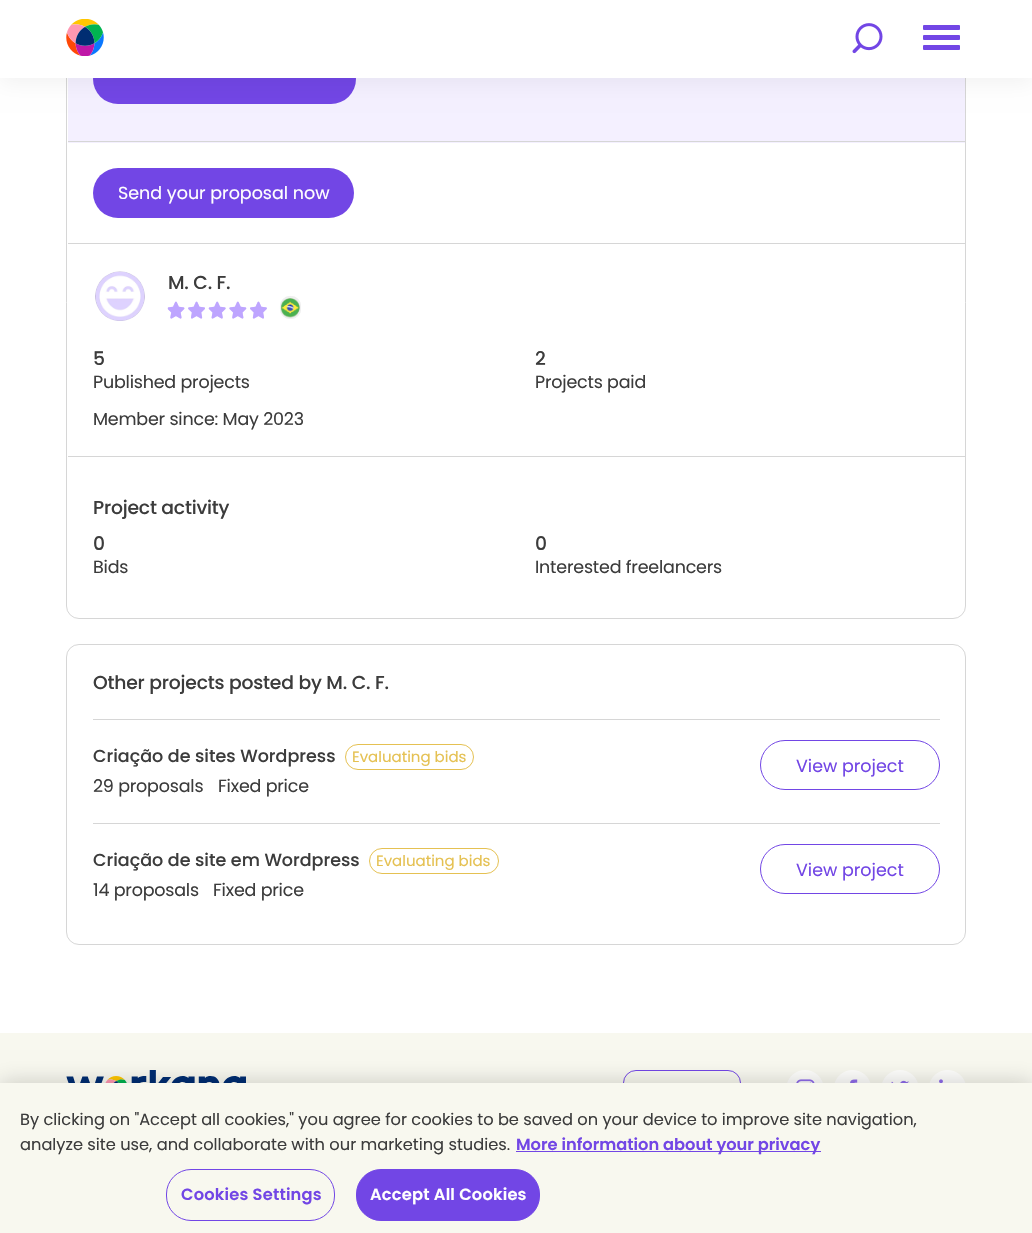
void draw(SkCanvas* canvas) {
    SkPaint paint;
    paint.setAntiAlias(true);
    auto face = [&](const char* family, int weight, float size, bool italic = false) {
        SkFontStyle style(weight, SkFontStyle::kNormal_Width,
            italic ? SkFontStyle::kItalic_Slant : SkFontStyle::kUpright_Slant);
        SkFont result(fontMgr->matchFamilyStyle(family, style), size);
        result.setSubpixel(true);
        return result;
    };
    auto write = [&](const char* s, float x, float y, const SkFont& font, SkColor color) {
        SkPaint ink(SkColor4f::FromColor(color));
        ink.setAntiAlias(true);
        canvas->drawString(s, x, y, font, ink);
    };
    auto writeSpaced = [&](const char* s, float x, float y, const SkFont& font, const SkPaint& ink, float letter, float word) {
        std::vector<SkGlyphID> glyphs(font.countText(s, strlen(s), SkTextEncoding::kUTF8));
        std::vector<float> xs(glyphs.size());
        font.textToGlyphs(s, strlen(s), SkTextEncoding::kUTF8, glyphs);
        font.getXPos(glyphs, xs, x);
        float extra = 0;
        for (size_t i = 0; i < glyphs.size(); i++) {
            xs[i] += extra;
            extra += letter + word * (glyphs[i] == font.unicharToGlyph(' '));
        }
        canvas->drawTextBlob(SkTextBlob::MakeFromPosHGlyphs(glyphs, xs, y, font), 0, 0, ink);
    };
    auto block = [&](float x, float y, float w, float h, SkColor color) {
        SkPaint ink(SkColor4f::FromColor(color));
        ink.setAntiAlias(true);
        canvas->drawRect(SkRect::MakeXYWH(x, y, w, h), ink);
    };
    auto card = [&](float x, float y, float w, float h, float radius, SkColor color) {
        SkPaint ink(SkColor4f::FromColor(color));
        ink.setAntiAlias(true);
        canvas->drawRoundRect(SkRect::MakeXYWH(x, y, w, h), radius, radius, ink);
    };
    auto paste = [&](const char* path, float x, float y, float w, float h) {
        auto image = SkImages::DeferredFromEncodedData(SkData::MakeFromFileName(path));
        canvas->drawImageRect(image, SkRect::MakeXYWH(x, y, w, h), SkSamplingOptions());
    };
    canvas->clear(SK_ColorWHITE);
    paint.setStyle(SkPaint::kStroke_Style);
    paint.setStrokeWidth(1);
    paint.setColor(SkColorSetRGB(214, 214, 214));
    canvas->drawRoundRect(SkRect::MakeXYWH(66.5f, -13.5f, 899, 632), 12.5f, 12.5f, paint);
    block(68, 78, 897, 65, SkColorSetRGB(244, 240, 255));
    card(93, 54, 263, 50, 25, SkColorSetRGB(114, 70, 229));
    paint.setStyle(SkPaint::kFill_Style);
    paint.setColor(SkColorSetARGB(13, 0, 0, 0));
    paint.setMaskFilter(SkMaskFilter::MakeBlur(kNormal_SkBlurStyle, 10));
    canvas->drawRect(SkRect::MakeXYWH(0, 5, 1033, 78), paint);
    paint.setMaskFilter(nullptr);
    block(0, 0, 1032, 78, SK_ColorWHITE);
    paste("pic1.png", 66, 19, 38, 37);
    paste("pic2.png", 852, 23, 31, 31);
    card(923, 25, 37, 5, 1, SkColorSetRGB(114, 70, 229));
    card(923, 35, 37, 5, 1, SkColorSetRGB(114, 70, 229));
    card(923, 45, 37, 5, 1, SkColorSetRGB(114, 70, 229));
    block(68, 141, 897, 1, SkColorSetRGB(214, 214, 214));
    block(68, 243, 897, 1, SkColorSetRGB(214, 214, 214));
    card(93, 168, 261, 50, 25, SkColorSetRGB(114, 70, 229));
    auto kFont1 = face("Poppins", 400, 17.5f);
    write("Send your proposal now", 118, 199, kFont1, SK_ColorWHITE);
    block(68, 456, 897, 1, SkColorSetRGB(214, 214, 214));
    paste("pic3.png", 95, 271, 50, 50);
    auto kFont2 = face("Poppins", 500, 18.75f);
    paint.setColor(SkColorSetRGB(60, 60, 60));
    writeSpaced("M. C. F.", 168, 289, kFont2, paint, -0.2f, 0);
    paste("pic4.png", 167, 301, 100, 18);
    paste("pic5.png", 168, 301, 99, 18);
    card(280, 296, 21, 23, 10, SkColorSetRGB(239, 239, 239));
    paste("pic6.png", 280, 298, 20, 20);
    paint.setStyle(SkPaint::kStroke_Style);
    paint.setStrokeWidth(0.9f);
    paint.setColor(SkColorSetRGB(239, 239, 239));
    canvas->drawRoundRect(SkRect::MakeXYWH(280.45f, 296.45f, 20.1f, 22.1f), 9.55f, 9.55f, paint);
    paint.setStyle(SkPaint::kFill_Style);
    paint.setColor(SkColorSetRGB(60, 60, 60));
    writeSpaced("5", 93, 365, kFont2, paint, -0.2f, 0);
    writeSpaced("Published projects", 93, 388, kFont1, paint, -0.2f, 0);
    writeSpaced("2", 535, 365, kFont2, paint, -0.2f, 0);
    writeSpaced("Projects paid", 535, 388, kFont1, paint, -0.2f, 0);
    writeSpaced("Member since: May 2023", 93, 425, kFont1, paint, -0.2f, 0);
    writeSpaced("Project activity", 93, 514, kFont2, paint, -0.2f, 0);
    writeSpaced("0", 93, 550, kFont2, paint, -0.2f, 0);
    writeSpaced("Bids", 93, 573, kFont1, paint, -0.2f, 0);
    writeSpaced("0", 535, 550, kFont2, paint, -0.2f, 0);
    writeSpaced("Interested freelancers", 535, 573, kFont1, paint, -0.2f, 0);
    paint.setStyle(SkPaint::kStroke_Style);
    paint.setStrokeWidth(1);
    paint.setColor(SkColorSetRGB(214, 214, 214));
    canvas->drawRoundRect(SkRect::MakeXYWH(66.5f, 644.5f, 899, 300), 12.5f, 12.5f, paint);
    paint.setStyle(SkPaint::kFill_Style);
    paint.setColor(SkColorSetRGB(60, 60, 60));
    writeSpaced("Other projects posted by M. C. F.", 93, 689, kFont2, paint, -0.2f, 0);
    block(93, 719, 847, 1, SkColorSetRGB(214, 214, 214));
    auto kFont3 = face("Poppins", 500, 17.5f);
    write("Criação de sites Wordpress", 93, 762, kFont3, SkColorSetRGB(60, 60, 60));
    paint.setStyle(SkPaint::kStroke_Style);
    paint.setColor(SkColorSetRGB(229, 193, 82));
    canvas->drawRoundRect(SkRect::MakeXYWH(345.5f, 744.5f, 128, 25), 12.5f, 12.5f, paint);
    auto kFont4 = face("Poppins", 400, 15);
    write("Evaluating bids", 352, 762, kFont4, SkColorSetRGB(229, 193, 82));
    paint.setStyle(SkPaint::kFill_Style);
    paint.setColor(SkColorSetRGB(60, 60, 60));
    writeSpaced("29 proposals", 93, 792, kFont1, paint, -0.2f, 0);
    writeSpaced("Fixed price", 218, 792, kFont1, paint, -0.2f, 0);
    paint.setStyle(SkPaint::kStroke_Style);
    paint.setColor(SkColorSetRGB(114, 70, 229));
    canvas->drawRoundRect(SkRect::MakeXYWH(760.5f, 740.5f, 179, 49), 24.5f, 24.5f, paint);
    write("View project", 796, 772, kFont1, SkColorSetRGB(114, 70, 229));
    block(93, 823, 847, 1, SkColorSetRGB(214, 214, 214));
    write("Criação de site em Wordpress", 93, 866, kFont3, SkColorSetRGB(60, 60, 60));
    paint.setColor(SkColorSetRGB(229, 193, 82));
    canvas->drawRoundRect(SkRect::MakeXYWH(369.5f, 848.5f, 129, 25), 12.5f, 12.5f, paint);
    write("Evaluating bids", 376, 866, kFont4, SkColorSetRGB(229, 193, 82));
    paint.setStyle(SkPaint::kFill_Style);
    paint.setColor(SkColorSetRGB(60, 60, 60));
    writeSpaced("14 proposals", 93, 896, kFont1, paint, -0.2f, 0);
    writeSpaced("Fixed price", 213, 896, kFont1, paint, -0.2f, 0);
    paint.setStyle(SkPaint::kStroke_Style);
    paint.setColor(SkColorSetRGB(114, 70, 229));
    canvas->drawRoundRect(SkRect::MakeXYWH(760.5f, 844.5f, 179, 49), 24.5f, 24.5f, paint);
    write("View project", 796, 876, kFont1, SkColorSetRGB(114, 70, 229));
    block(0, 1033, 1032, 50, SkColorSetRGB(248, 248, 239));
    paste("pic7.png", 66, 1070, 180, 13);
    canvas->drawRoundRect(SkRect::MakeXYWH(623.5f, 1070.5f, 117, 44), 12.5f, 12.5f, paint);
    paste("pic8.png", 787, 1070, 36, 13);
    paste("pic9.png", 834, 1070, 37, 13);
    paste("pic10.png", 882, 1070, 36, 13);
    paste("pic11.png", 929, 1070, 37, 13);
    paint.setStyle(SkPaint::kFill_Style);
    paint.setColor(SkColorSetARGB(51, 0, 0, 0));
    paint.setMaskFilter(SkMaskFilter::MakeBlur(kNormal_SkBlurStyle, 11));
    canvas->drawRect(SkRect::MakeXYWH(0, 1083, 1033, 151), paint);
    paint.setMaskFilter(nullptr);
    block(0, 1083, 1032, 150, SkColorSetRGB(248, 248, 239));
    auto kFont5 = face("Poppins", 400, 16.25f);
    write("By clicking on \"Accept all cookies,\" you agree for cookies to be saved on your device to improve site navigation,", 20, 1125, kFont5, SkColorSetRGB(60, 60, 60));
    write("analyze site use, and collaborate with our marketing studies.", 20, 1150, kFont5, SkColorSetRGB(60, 60, 60));
    block(516, 1151, 305, 1, SkColorSetRGB(114, 70, 229));
    auto kFont6 = face("Poppins", 600, 16.25f);
    write("More information about your privacy", 516, 1150, kFont6, SkColorSetRGB(114, 70, 229));
    paint.setStyle(SkPaint::kStroke_Style);
    paint.setColor(SkColorSetRGB(114, 70, 229));
    canvas->drawRoundRect(SkRect::MakeXYWH(166.5f, 1169.5f, 168, 51), 24.5f, 24.5f, paint);
    paint.setStyle(SkPaint::kFill_Style);
    writeSpaced("Cookies Settings", 181, 1200, kFont6, paint, 0.2f, 0);
    canvas->drawRoundRect(SkRect::MakeXYWH(356.5f, 1169.5f, 183, 51), 24.5f, 24.5f, paint);
    paint.setStyle(SkPaint::kStroke_Style);
    canvas->drawRoundRect(SkRect::MakeXYWH(356.5f, 1169.5f, 183, 51), 24.5f, 24.5f, paint);
    paint.setStyle(SkPaint::kFill_Style);
    paint.setColor(SK_ColorWHITE);
    writeSpaced("Accept All Cookies", 370, 1200, kFont6, paint, 0.2f, 0);
}
